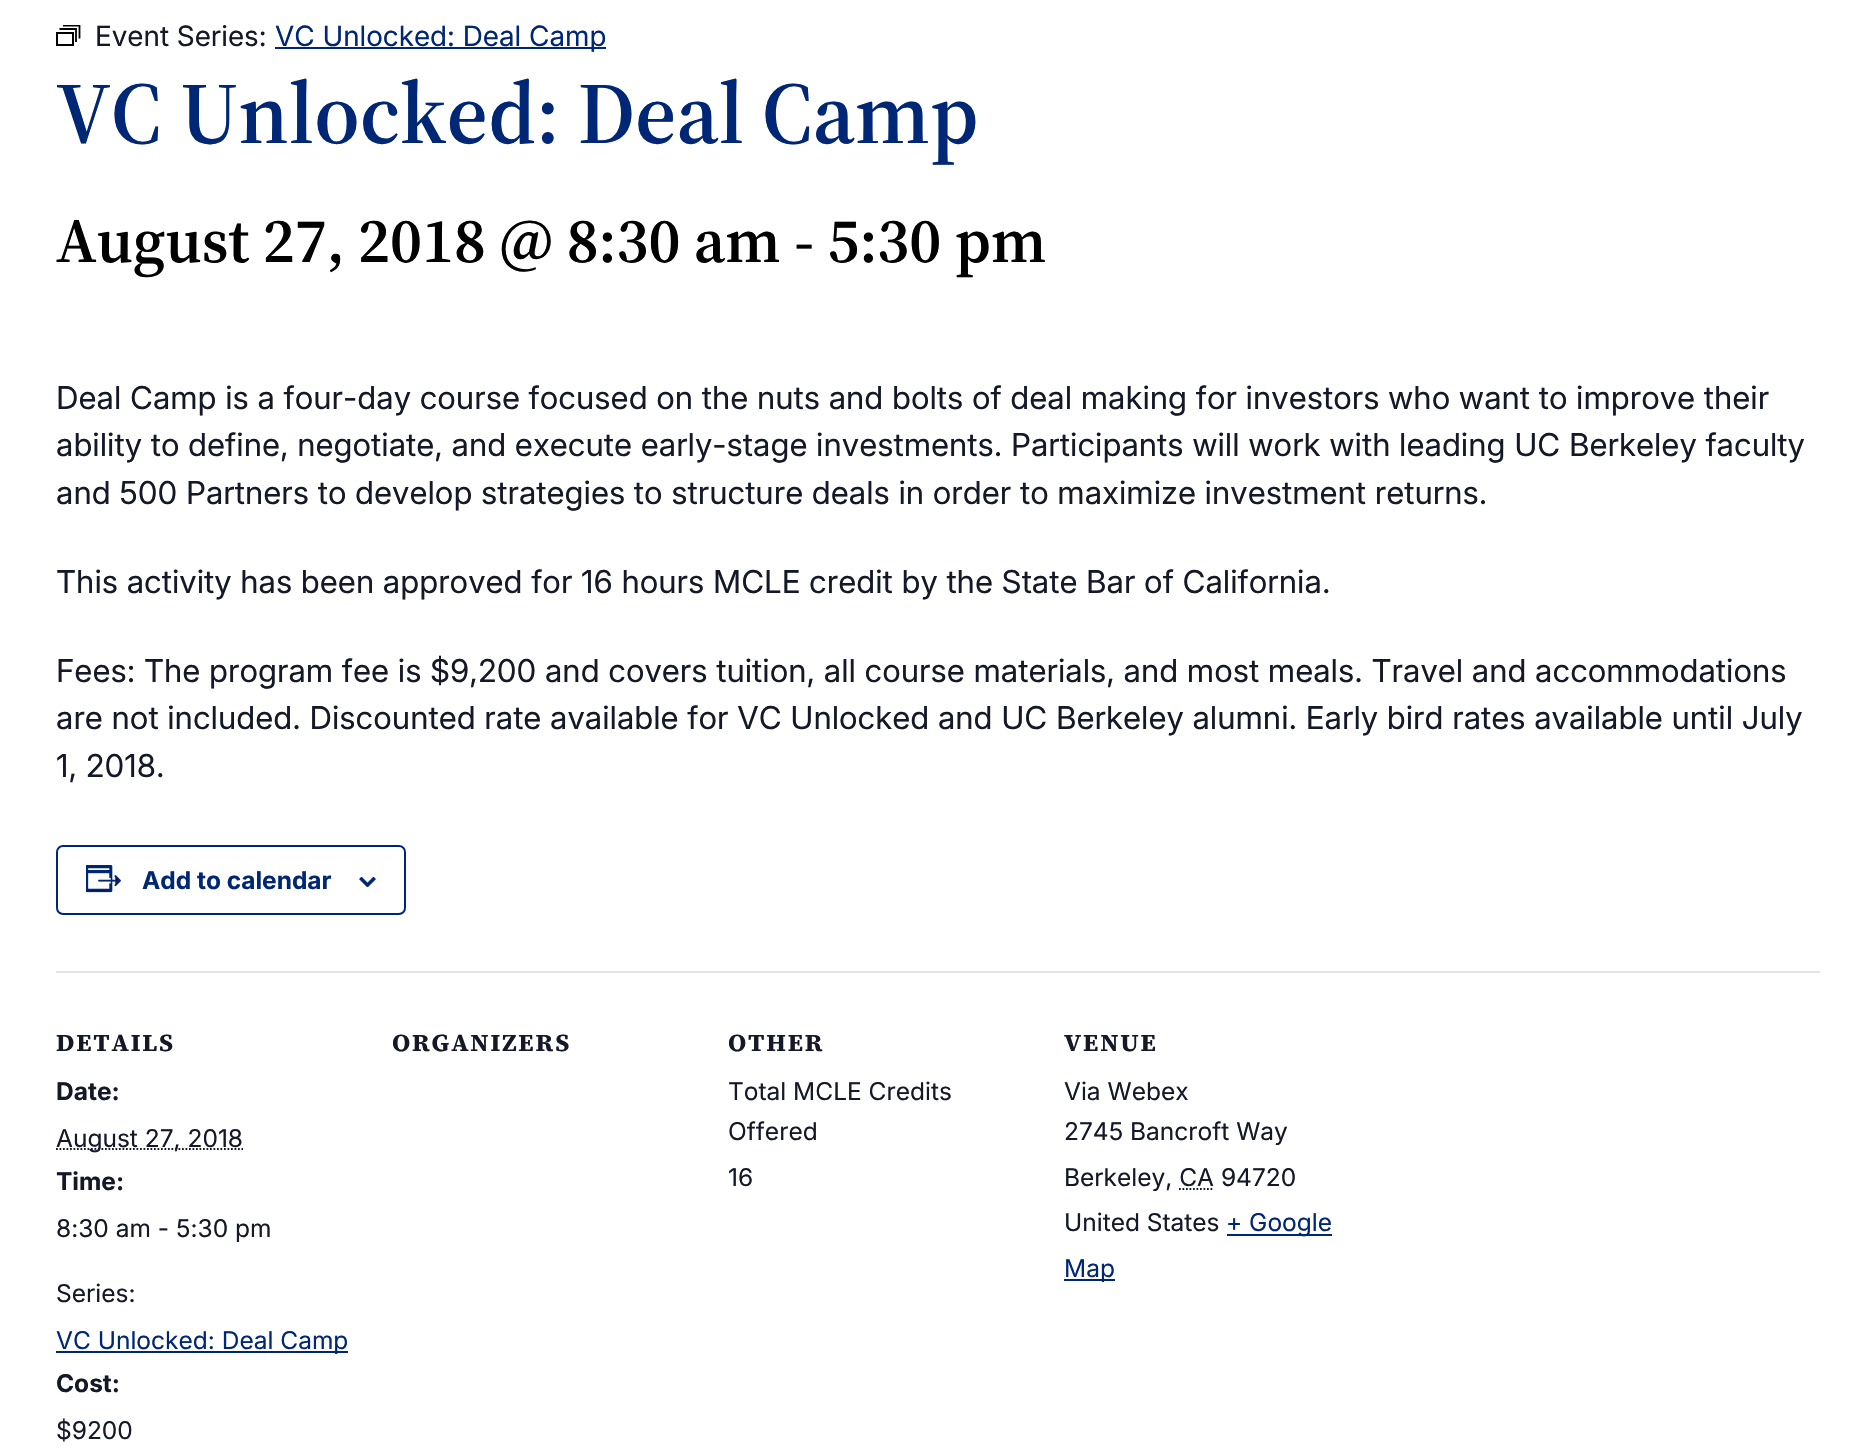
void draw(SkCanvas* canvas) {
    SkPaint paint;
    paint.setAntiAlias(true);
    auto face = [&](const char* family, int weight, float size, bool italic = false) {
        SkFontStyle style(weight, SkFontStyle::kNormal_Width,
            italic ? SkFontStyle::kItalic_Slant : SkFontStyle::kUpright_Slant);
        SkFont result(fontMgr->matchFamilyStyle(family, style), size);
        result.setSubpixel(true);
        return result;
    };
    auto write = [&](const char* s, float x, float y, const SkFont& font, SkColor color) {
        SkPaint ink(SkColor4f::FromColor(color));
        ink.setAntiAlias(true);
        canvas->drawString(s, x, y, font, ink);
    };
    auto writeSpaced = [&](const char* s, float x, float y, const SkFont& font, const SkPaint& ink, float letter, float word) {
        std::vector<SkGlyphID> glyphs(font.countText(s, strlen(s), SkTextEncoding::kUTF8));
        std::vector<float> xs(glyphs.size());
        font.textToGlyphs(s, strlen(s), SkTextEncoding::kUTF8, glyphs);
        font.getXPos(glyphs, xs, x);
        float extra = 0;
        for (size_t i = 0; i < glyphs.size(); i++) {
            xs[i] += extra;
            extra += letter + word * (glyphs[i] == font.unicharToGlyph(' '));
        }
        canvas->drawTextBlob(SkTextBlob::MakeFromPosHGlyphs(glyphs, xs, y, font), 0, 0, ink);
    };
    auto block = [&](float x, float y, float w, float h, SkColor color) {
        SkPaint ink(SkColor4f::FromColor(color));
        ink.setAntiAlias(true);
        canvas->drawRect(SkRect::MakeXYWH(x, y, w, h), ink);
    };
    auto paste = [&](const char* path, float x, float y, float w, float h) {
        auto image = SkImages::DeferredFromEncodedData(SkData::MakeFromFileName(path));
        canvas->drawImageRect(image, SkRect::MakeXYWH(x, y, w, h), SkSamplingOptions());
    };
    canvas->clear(SK_ColorWHITE);
    paint.setStyle(SkPaint::kStroke_Style);
    paint.setStrokeWidth(2);
    paint.setColor(SK_ColorBLACK);
    canvas->drawRect(SkRect::MakeXYWH(57, 33, 16, 12), paint);
    paint.setStrokeWidth(1.8f);
    canvas->drawPath(SkPathBuilder().moveTo(59.5f, 29).lineTo(76, 29).lineTo(76, 42).detach(), paint);
    canvas->save();
    canvas->clipRect(SkRect::MakeXYWH(56, 25, 25, 21));
    canvas->drawPath(SkPathBuilder().moveTo(63, 25.5f).lineTo(79.5f, 25.5f).lineTo(79.5f, 38.5f).detach(), paint);
    canvas->restore();
    auto kFont1 = face("Inter", 400, 28);
    write("Event Series:", 95, 46, kFont1, SkColorSetRGB(20, 24, 39));
    block(275, 47, 331, 2, SkColorSetRGB(0, 38, 118));
    write("VC Unlocked: Deal Camp", 275, 46, kFont1, SkColorSetRGB(0, 38, 118));
    auto kFont2 = face("Source Serif 4", 600, 87.5f);
    write("VC Unlocked: Deal Camp", 56, 143, kFont2, SkColorSetRGB(0, 38, 118));
    auto kFont3 = face("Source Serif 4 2", 600, 63);
    write("August 27, 2018 @ 8:30 am - 5:30 pm", 56, 262, kFont3, SK_ColorBLACK);
    auto kFont4 = face("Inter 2", 400, 31.5f);
    write("Deal Camp is a four-day course focused on the nuts and bolts of deal making for investors who want to improve their", 56, 409, kFont4, SkColorSetRGB(20, 24, 39));
    write("ability to define, negotiate, and execute early-stage investments. Participants will work with leading UC Berkeley faculty", 56, 456, kFont4, SkColorSetRGB(20, 24, 39));
    write("and 500 Partners to develop strategies to structure deals in order to maximize investment returns.", 56, 504, kFont4, SkColorSetRGB(20, 24, 39));
    write("This activity has been approved for 16 hours MCLE credit by the State Bar of California.", 56, 593, kFont4, SkColorSetRGB(20, 24, 39));
    write("Fees: The program fee is $9,200 and covers tuition, all course materials, and most meals. Travel and accommodations", 56, 682, kFont4, SkColorSetRGB(20, 24, 39));
    write("are not included. Discounted rate available for VC Unlocked and UC Berkeley alumni. Early bird rates available until July", 56, 729, kFont4, SkColorSetRGB(20, 24, 39));
    write("1, 2018.", 56, 777, kFont4, SkColorSetRGB(20, 24, 39));
    paint.setStrokeWidth(2);
    paint.setColor(SkColorSetRGB(0, 38, 118));
    canvas->drawRoundRect(SkRect::MakeXYWH(57, 846, 348, 68), 6, 6, paint);
    paste("pic1.png", 86, 865, 35, 28);
    auto kFont5 = face("Inter", 700, 24.5f);
    write("Add to calendar", 142, 889, kFont5, SkColorSetRGB(0, 38, 118));
    paste("pic2.png", 359, 877, 17, 10);
    block(56, 971, 1764, 2, SkColorSetRGB(228, 228, 228));
    auto kFont6 = face("Source Serif 4", 700, 24.5f);
    paint.setStyle(SkPaint::kFill_Style);
    paint.setColor(SkColorSetRGB(20, 24, 39));
    writeSpaced("DETAILS", 56, 1051, kFont6, paint, 1.75f, 0);
    write("Date:", 56, 1100, kFont5, SkColorSetRGB(20, 24, 39));
    paint.setStyle(SkPaint::kStroke_Style);
    paint.setStrokeWidth(1.8f);
    paint.setPathEffect(SkDashPathEffect::Make({{1.75f, 1.75f}}, 0));
    canvas->drawPath(SkPathBuilder().moveTo(56, 1149).lineTo(243, 1149).detach(), paint);
    paint.setPathEffect(nullptr);
    auto kFont7 = face("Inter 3", 400, 24.5f);
    write("August 27, 2018", 56, 1147, kFont7, SkColorSetRGB(20, 24, 39));
    write("Time:", 56, 1190, kFont5, SkColorSetRGB(20, 24, 39));
    write("8:30 am - 5:30 pm", 56, 1237, kFont7, SkColorSetRGB(20, 24, 39));
    write("Series:", 56, 1302, kFont7, SkColorSetRGB(20, 24, 39));
    block(56, 1351, 292, 2, SkColorSetRGB(0, 38, 118));
    write("VC Unlocked: Deal Camp", 56, 1349, kFont7, SkColorSetRGB(0, 38, 118));
    write("Cost:", 56, 1392, kFont5, SkColorSetRGB(20, 24, 39));
    write("$9200", 56, 1439, kFont7, SkColorSetRGB(20, 24, 39));
    paint.setStyle(SkPaint::kFill_Style);
    writeSpaced("ORGANIZERS", 392, 1051, kFont6, paint, 1.75f, 0);
    writeSpaced("OTHER", 728, 1051, kFont6, paint, 1.75f, 0);
    write("Total MCLE Credits", 728, 1100, kFont7, SkColorSetRGB(20, 24, 39));
    write("Offered", 728, 1140, kFont7, SkColorSetRGB(20, 24, 39));
    write("16", 728, 1186, kFont7, SkColorSetRGB(20, 24, 39));
    writeSpaced("VENUE", 1064, 1051, kFont6, paint, 1.75f, 0);
    write("Via Webex", 1064, 1100, kFont7, SkColorSetRGB(20, 24, 39));
    write("2745 Bancroft Way", 1064, 1140, kFont7, SkColorSetRGB(20, 24, 39));
    write("Berkeley, CA 94720", 1064, 1186, kFont7, SkColorSetRGB(20, 24, 39));
    paint.setStyle(SkPaint::kStroke_Style);
    paint.setPathEffect(SkDashPathEffect::Make({{1.75f, 1.75f}}, 0));
    canvas->drawPath(SkPathBuilder().moveTo(1179, 1189).lineTo(1214, 1189).detach(), paint);
    paint.setPathEffect(nullptr);
    write("United States", 1064, 1231, kFont7, SkColorSetRGB(20, 24, 39));
    block(1227, 1234, 105, 2, SkColorSetRGB(0, 38, 118));
    write("+ Google", 1226, 1231, kFont7, SkColorSetRGB(0, 38, 118));
    block(1064, 1279, 51, 2, SkColorSetRGB(0, 38, 118));
    write("Map", 1064, 1277, kFont7, SkColorSetRGB(0, 38, 118));
}
